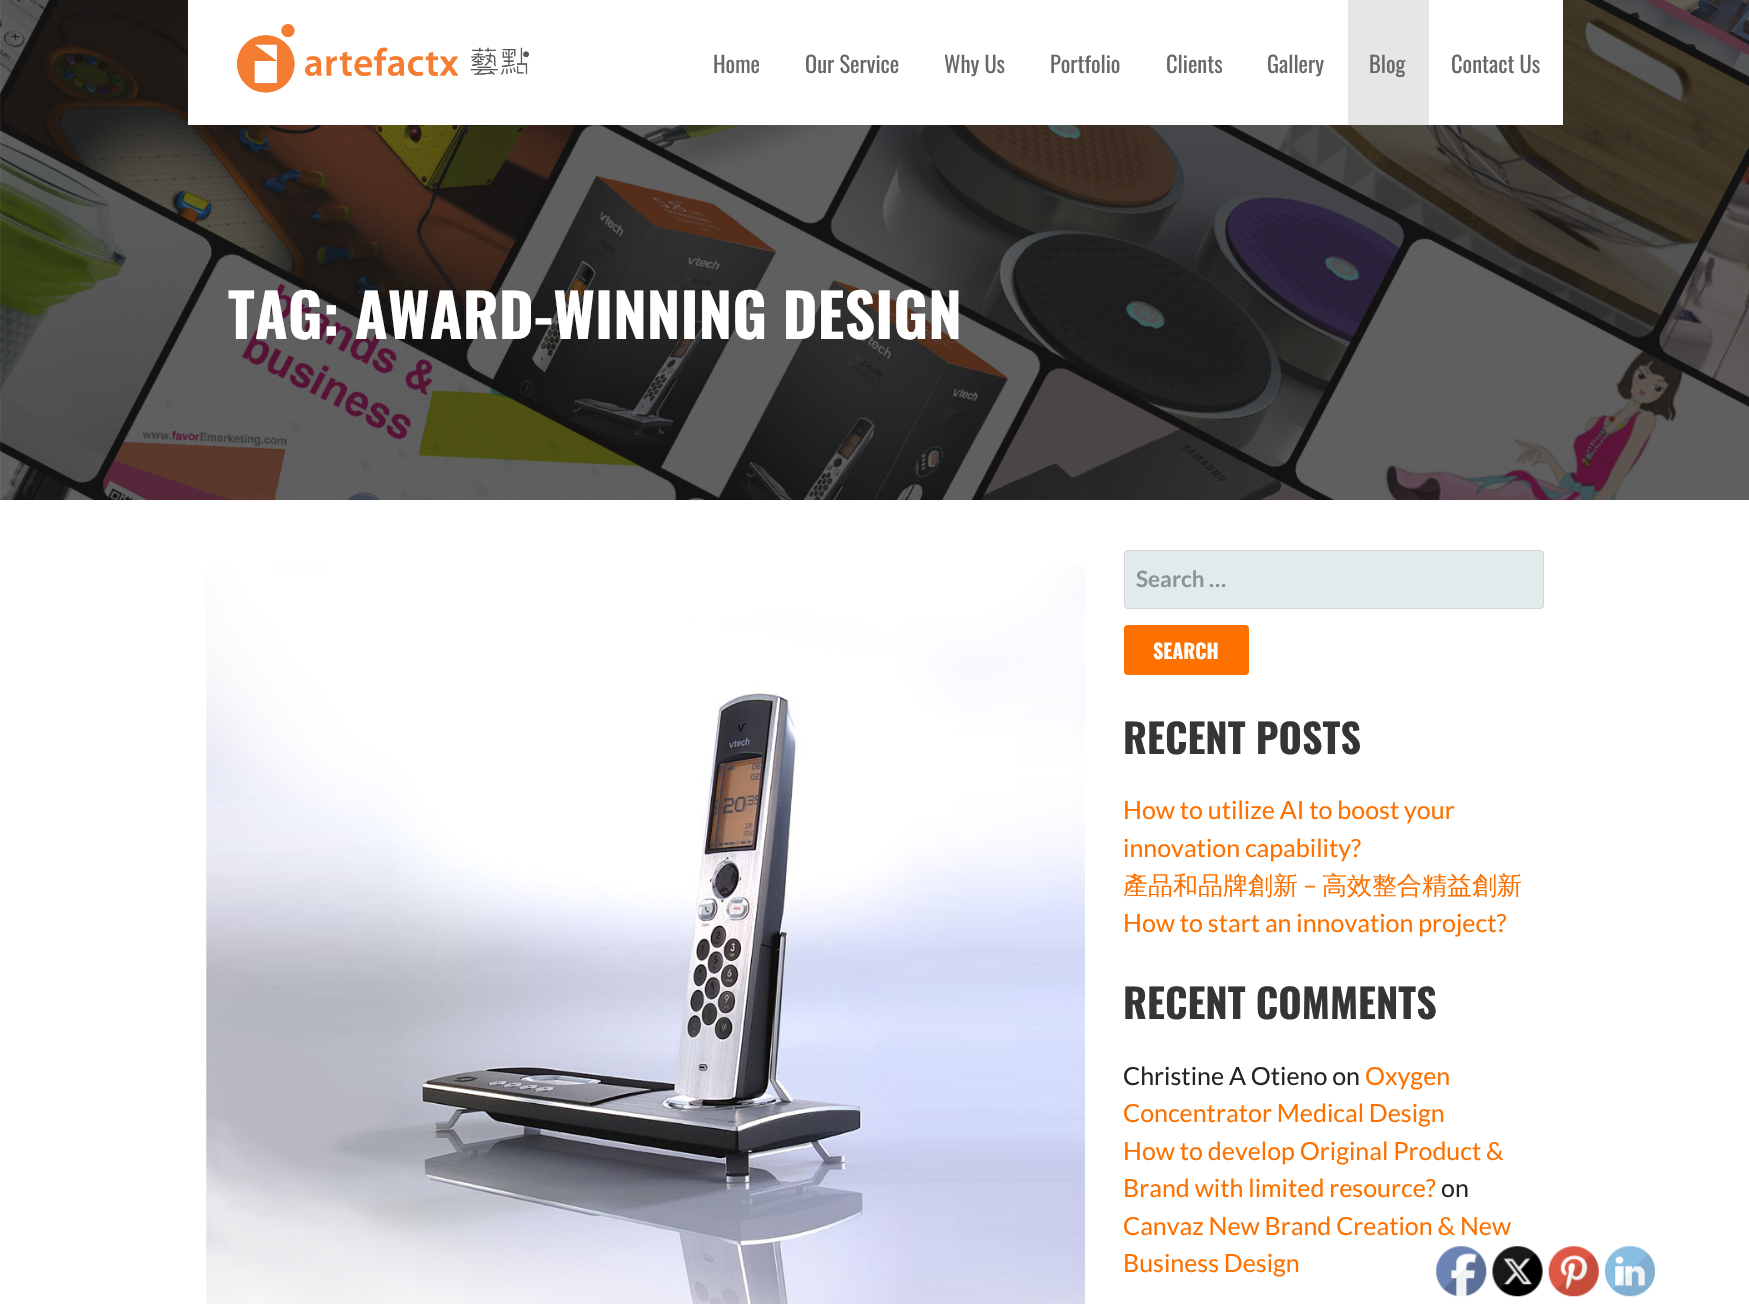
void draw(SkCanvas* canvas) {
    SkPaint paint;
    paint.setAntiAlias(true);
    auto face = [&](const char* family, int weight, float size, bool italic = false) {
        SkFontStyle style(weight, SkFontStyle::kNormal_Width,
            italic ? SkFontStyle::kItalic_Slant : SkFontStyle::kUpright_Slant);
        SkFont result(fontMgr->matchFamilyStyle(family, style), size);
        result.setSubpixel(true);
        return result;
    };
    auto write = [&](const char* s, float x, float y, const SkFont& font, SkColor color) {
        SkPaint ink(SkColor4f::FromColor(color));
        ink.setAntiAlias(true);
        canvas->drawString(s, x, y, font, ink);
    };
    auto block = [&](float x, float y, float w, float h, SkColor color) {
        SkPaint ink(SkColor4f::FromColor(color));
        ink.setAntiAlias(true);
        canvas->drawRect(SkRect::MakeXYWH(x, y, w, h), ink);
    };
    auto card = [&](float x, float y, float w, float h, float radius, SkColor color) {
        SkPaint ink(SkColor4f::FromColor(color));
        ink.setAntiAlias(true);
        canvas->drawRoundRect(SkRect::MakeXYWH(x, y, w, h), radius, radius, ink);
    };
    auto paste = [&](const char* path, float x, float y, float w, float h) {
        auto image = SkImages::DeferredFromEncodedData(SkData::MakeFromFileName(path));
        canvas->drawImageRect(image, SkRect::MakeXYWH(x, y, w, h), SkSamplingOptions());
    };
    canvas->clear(SK_ColorWHITE);
    paste("pic2.png", 0, 0, 1749, 500);
    block(188, 0, 1375, 125, SK_ColorWHITE);
    paste("pic1.png", 236, 23, 293, 70);
    auto kFont1 = face("Oswald", 400, 22.5f);
    write("Home", 713, 73, kFont1, SkColorSetRGB(104, 104, 104));
    write("Our Service", 805, 73, kFont1, SkColorSetRGB(104, 104, 104));
    write("Why Us", 944, 73, kFont1, SkColorSetRGB(104, 104, 104));
    write("Portfolio", 1050, 73, kFont1, SkColorSetRGB(104, 104, 104));
    write("Clients", 1166, 73, kFont1, SkColorSetRGB(104, 104, 104));
    write("Gallery", 1267, 73, kFont1, SkColorSetRGB(104, 104, 104));
    block(1348, 0, 81, 125, SkColorSetRGB(230, 230, 230));
    write("Blog", 1369, 73, kFont1, SkColorSetRGB(104, 104, 104));
    write("Contact Us", 1451, 73, kFont1, SkColorSetRGB(104, 104, 104));
    auto kFont2 = face("Oswald", 700, 60);
    write("TAG: AWARD-WINNING DESIGN", 228, 339, kFont2, SK_ColorWHITE);
    paste("pic3.png", 206, 566, 879, 738);
    card(1124, 550, 420, 59, 4, SkColorSetRGB(227, 234, 235));
    paint.setStyle(SkPaint::kStroke_Style);
    paint.setStrokeWidth(1);
    paint.setColor(SkColorSetARGB(26, 37, 37, 37));
    canvas->drawRoundRect(SkRect::MakeXYWH(1124.5f, 550.5f, 419, 58), 3.5f, 3.5f, paint);
    auto kFont3 = face("Lato", 700, 22.5f);
    write("Search …", 1136, 587, kFont3, SkColorSetRGB(139, 149, 150));
    card(1124, 625, 125, 50, 4, SkColorSetRGB(252, 113, 0));
    auto kFont4 = face("Oswald", 700, 20);
    write("SEARCH", 1153, 659, kFont4, SK_ColorWHITE);
    auto kFont5 = face("Oswald", 700, 40);
    write("RECENT POSTS", 1123, 754, kFont5, SkColorSetRGB(53, 53, 53));
    auto kFont6 = face("Lato", 400, 25);
    write("How to utilize AI to boost your", 1123, 819, kFont6, SkColorSetRGB(252, 113, 0));
    write("innovation capability?", 1123, 857, kFont6, SkColorSetRGB(252, 113, 0));
    auto kFont7 = face("WenQuanYi Zen Hei", 500, 25);
    write("產品和品牌創新", 1123, 894, kFont7, SkColorSetRGB(252, 113, 0));
    write("–", 1303, 894, kFont6, SkColorSetRGB(252, 113, 0));
    write("高效整合精益創新", 1322, 894, kFont7, SkColorSetRGB(252, 113, 0));
    write("How to start an innovation project?", 1123, 932, kFont6, SkColorSetRGB(252, 113, 0));
    write("RECENT COMMENTS", 1123, 1019, kFont5, SkColorSetRGB(53, 53, 53));
    write("Christine A Otieno on", 1123, 1085, kFont6, SkColorSetRGB(37, 37, 37));
    write("Oxygen", 1365, 1085, kFont6, SkColorSetRGB(252, 113, 0));
    write("Concentrator Medical Design", 1123, 1122, kFont6, SkColorSetRGB(252, 113, 0));
    write("How to develop Original Product &", 1123, 1160, kFont6, SkColorSetRGB(252, 113, 0));
    write("Brand with limited resource?", 1123, 1197, kFont6, SkColorSetRGB(252, 113, 0));
    write("on", 1441, 1197, kFont6, SkColorSetRGB(37, 37, 37));
    write("Canvaz New Brand Creation & New", 1123, 1235, kFont6, SkColorSetRGB(252, 113, 0));
    write("Business Design", 1123, 1272, kFont6, SkColorSetRGB(252, 113, 0));
    paste("pic4.png", 1436, 1246, 51, 51);
    paste("pic5.png", 1492, 1246, 51, 51);
    paste("pic6.png", 1548, 1246, 51, 51);
    paste("pic7.png", 1605, 1246, 50, 51);
}
